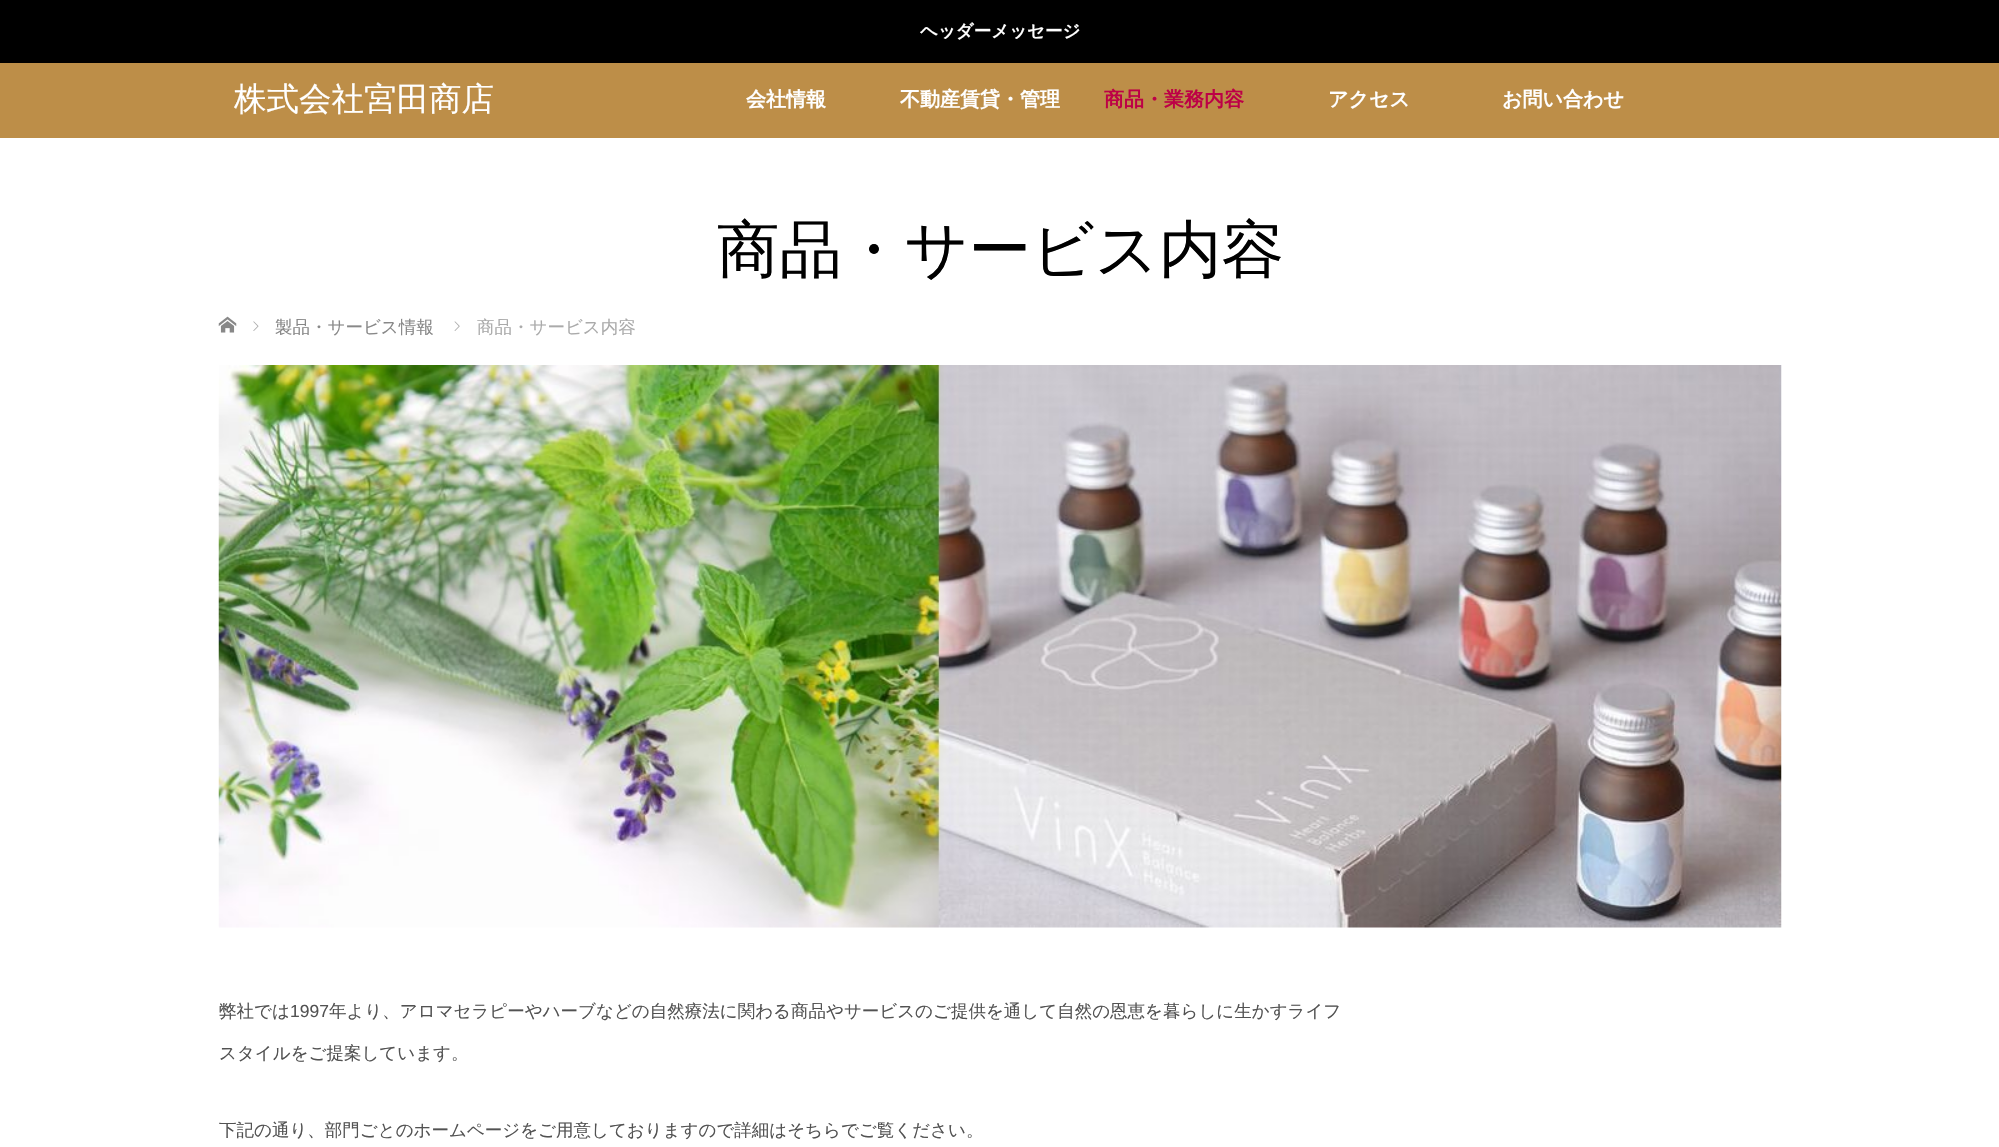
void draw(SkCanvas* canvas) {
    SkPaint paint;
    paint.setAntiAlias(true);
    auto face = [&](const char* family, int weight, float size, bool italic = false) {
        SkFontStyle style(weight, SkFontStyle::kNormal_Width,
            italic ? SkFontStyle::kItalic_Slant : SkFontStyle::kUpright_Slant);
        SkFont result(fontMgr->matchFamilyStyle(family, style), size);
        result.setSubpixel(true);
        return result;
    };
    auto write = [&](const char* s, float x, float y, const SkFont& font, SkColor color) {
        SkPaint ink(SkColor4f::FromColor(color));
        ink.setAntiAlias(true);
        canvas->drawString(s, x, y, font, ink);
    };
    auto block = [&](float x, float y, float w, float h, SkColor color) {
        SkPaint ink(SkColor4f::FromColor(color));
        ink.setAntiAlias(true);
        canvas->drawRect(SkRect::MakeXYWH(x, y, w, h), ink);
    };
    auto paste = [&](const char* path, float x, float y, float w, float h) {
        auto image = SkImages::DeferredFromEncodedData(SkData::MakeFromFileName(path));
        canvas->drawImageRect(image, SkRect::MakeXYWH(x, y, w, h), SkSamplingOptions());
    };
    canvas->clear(SK_ColorWHITE);
    block(0, 0, 1999, 63, SK_ColorBLACK);
    auto kFont1 = face("WenQuanYi Zen Hei", 700, 17.5f);
    write("ヘッダーメッセージ", 920, 37, kFont1, SK_ColorWHITE);
    block(0, 63, 1999, 75, SkColorSetRGB(189, 142, 72));
    auto kFont2 = face("WenQuanYi Zen Hei", 500, 32.5f);
    write("株式会社宮田商店", 234, 110, kFont2, SK_ColorWHITE);
    auto kFont3 = face("WenQuanYi Zen Hei", 700, 20);
    write("会社情報", 746, 106, kFont3, SK_ColorWHITE);
    write("不動産賃貸・管理", 900, 106, kFont3, SK_ColorWHITE);
    write("商品・業務内容", 1104, 106, kFont3, SkColorSetRGB(189, 0, 70));
    write("アクセス", 1328, 106, kFont3, SK_ColorWHITE);
    write("お問い合わせ", 1502, 106, kFont3, SK_ColorWHITE);
    auto kFont4 = face("WenQuanYi Zen Hei", 500, 62.5f);
    write("商品・サービス内容", 717, 271, kFont4, SK_ColorBLACK);
    paste("pic1.png", 218, 316, 19, 17);
    paste("pic2.png", 253, 321, 6, 10);
    auto kFont5 = face("WenQuanYi Zen Hei", 500, 17.5f);
    write("製品・サービス情報", 275, 333, kFont5, SkColorSetRGB(136, 136, 136));
    paste("pic3.png", 454, 321, 6, 10);
    write("商品・サービス内容", 477, 333, kFont5, SkColorSetRGB(170, 170, 170));
    paste("pic4.png", 218, 365, 1564, 563);
    write("弊社では", 219, 1017, kFont5, SkColorSetRGB(82, 82, 82));
    auto kFont6 = face("Liberation Sans", 400, 17.5f);
    write("1997", 290, 1017, kFont6, SkColorSetRGB(82, 82, 82));
    write("年より、アロマセラピーやハーブなどの自然療法に関わる商品やサービスのご提供を通して自然の恩恵を暮らしに生かすライフ", 329, 1017, kFont5, SkColorSetRGB(82, 82, 82));
    write("スタイルをご提案しています。", 219, 1059, kFont5, SkColorSetRGB(82, 82, 82));
    write("下記の通り、部門ごとのホームページをご用意しておりますので詳細はそちらでご覧ください。", 219, 1136, kFont5, SkColorSetRGB(82, 82, 82));
}
